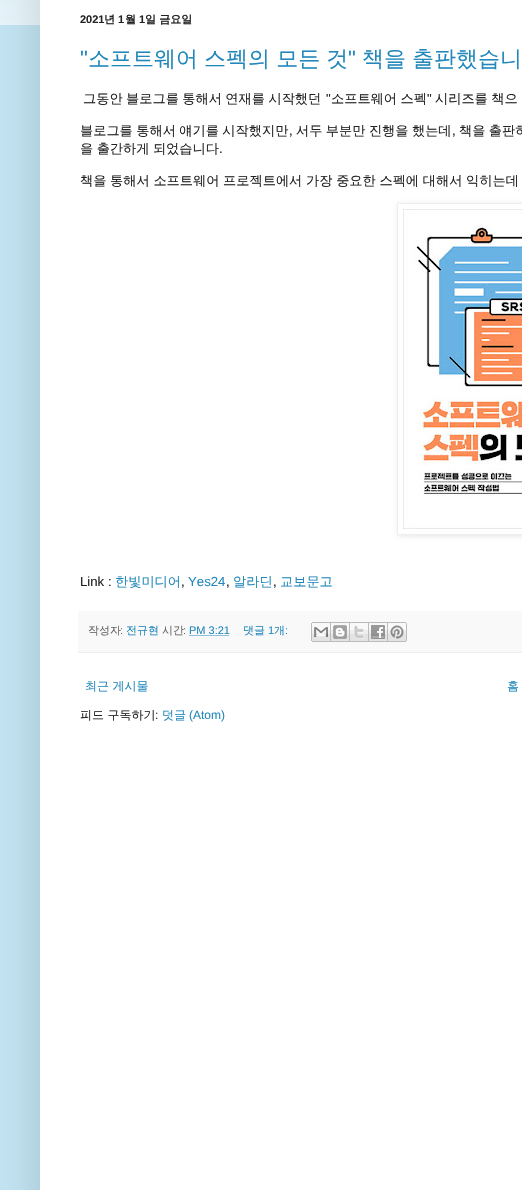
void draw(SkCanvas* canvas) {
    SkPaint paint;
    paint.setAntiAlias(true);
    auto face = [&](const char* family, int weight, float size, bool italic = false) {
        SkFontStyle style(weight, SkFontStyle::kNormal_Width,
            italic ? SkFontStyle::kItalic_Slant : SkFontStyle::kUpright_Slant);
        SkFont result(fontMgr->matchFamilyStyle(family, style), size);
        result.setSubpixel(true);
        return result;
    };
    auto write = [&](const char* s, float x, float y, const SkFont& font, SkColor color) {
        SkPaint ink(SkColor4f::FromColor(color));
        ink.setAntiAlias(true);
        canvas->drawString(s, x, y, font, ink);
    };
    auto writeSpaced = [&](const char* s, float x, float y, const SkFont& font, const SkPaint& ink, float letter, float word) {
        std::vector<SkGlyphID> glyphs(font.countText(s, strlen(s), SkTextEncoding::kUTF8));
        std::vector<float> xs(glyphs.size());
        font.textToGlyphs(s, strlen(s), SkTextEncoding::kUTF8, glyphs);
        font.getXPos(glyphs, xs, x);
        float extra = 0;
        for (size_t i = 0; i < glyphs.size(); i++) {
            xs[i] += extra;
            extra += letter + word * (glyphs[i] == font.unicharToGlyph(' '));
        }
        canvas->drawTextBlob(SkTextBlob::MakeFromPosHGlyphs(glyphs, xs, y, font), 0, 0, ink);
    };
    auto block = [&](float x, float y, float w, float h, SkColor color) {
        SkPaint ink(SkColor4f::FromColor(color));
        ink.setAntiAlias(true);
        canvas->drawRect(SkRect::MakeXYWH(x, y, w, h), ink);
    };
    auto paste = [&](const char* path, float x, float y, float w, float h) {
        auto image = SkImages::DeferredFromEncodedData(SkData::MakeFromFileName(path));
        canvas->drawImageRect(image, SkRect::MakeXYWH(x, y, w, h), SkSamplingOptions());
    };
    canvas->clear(SkColorSetRGB(194, 227, 242));
    paste("pic1.png", 0, 0, 40, 25);
    paint.setColor(SkColorSetARGB(38, 0, 0, 0));
    paint.setMaskFilter(SkMaskFilter::MakeBlur(kNormal_SkBlurStyle, 20));
    canvas->drawRect(SkRect::MakeXYWH(40, -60, 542, 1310), paint);
    paint.setMaskFilter(nullptr);
    block(40, 0, 482, 1190, SK_ColorWHITE);
    auto kFont1 = face("Liberation Sans", 700, 11);
    write("2021", 80, 23, kFont1, SkColorSetRGB(34, 34, 34));
    auto kFont2 = face("WenQuanYi Zen Hei", 700, 11);
    write("년", 104, 23, kFont2, SkColorSetRGB(34, 34, 34));
    write("1", 118, 23, kFont1, SkColorSetRGB(34, 34, 34));
    write("월", 125, 23, kFont2, SkColorSetRGB(34, 34, 34));
    write("1", 139, 23, kFont1, SkColorSetRGB(34, 34, 34));
    write("일 금요일", 145, 23, kFont2, SkColorSetRGB(34, 34, 34));
    auto kFont3 = face("Liberation Sans", 400, 22);
    write("\"", 80, 66, kFont3, SkColorSetRGB(34, 136, 187));
    auto kFont4 = face("WenQuanYi Zen Hei", 500, 22);
    paint.setColor(SkColorSetRGB(34, 136, 187));
    writeSpaced("소프트웨어 스펙의 모든 것", 88, 66, kFont4, paint, 0, -0.5f);
    write("\"", 348, 66, kFont3, SkColorSetRGB(34, 136, 187));
    writeSpaced("책을 출판했습니", 362, 66, kFont4, paint, 0, -0.5f);
    auto kFont5 = face("WenQuanYi Zen Hei", 500, 13.2f);
    paint.setColor(SkColorSetRGB(34, 34, 34));
    writeSpaced("그동안 블로그를 통해서 연재를 시작했던", 83, 103, kFont5, paint, 0, -0.5f);
    auto kFont6 = face("Liberation Sans", 400, 13.2f);
    write("\"", 326, 103, kFont6, SkColorSetRGB(34, 34, 34));
    writeSpaced("소프트웨어 스펙", 331, 103, kFont5, paint, 0, -0.5f);
    write("\"", 427, 103, kFont6, SkColorSetRGB(34, 34, 34));
    writeSpaced("시리즈를 책으", 435, 103, kFont5, paint, 0, -0.5f);
    writeSpaced("블로그를 통해서 얘기를 시작했지만", 80, 135, kFont5, paint, 0, -0.5f);
    write(",", 289, 135, kFont6, SkColorSetRGB(34, 34, 34));
    writeSpaced("서두 부분만 진행을 했는데", 296, 135, kFont5, paint, 0, -0.5f);
    write(",", 452, 135, kFont6, SkColorSetRGB(34, 34, 34));
    writeSpaced("책을 출판하", 459, 135, kFont5, paint, 0, -0.5f);
    writeSpaced("을 출간하게 되었습니다", 80, 153, kFont5, paint, 0, -0.5f);
    write(".", 219, 153, kFont6, SkColorSetRGB(34, 34, 34));
    writeSpaced("책을 통해서 소프트웨어 프로젝트에서 가장 중요한 스펙에 대해서 익히는데", 80, 185, kFont5, paint, 0, -0.25f);
    canvas->save();
    canvas->clipPath(SkPathBuilder(SkPathFillType::kEvenOdd).moveTo(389, 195).lineTo(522, 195).lineTo(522, 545).lineTo(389, 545).close().moveTo(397, 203).lineTo(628, 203).lineTo(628, 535).lineTo(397, 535).close().detach(), true);
    paint.setColor(SkColorSetARGB(26, 0, 0, 0));
    paint.setMaskFilter(SkMaskFilter::MakeBlur(kNormal_SkBlurStyle, 2.5f));
    canvas->drawRect(SkRect::MakeXYWH(398, 204, 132, 332), paint);
    paint.setMaskFilter(nullptr);
    canvas->restore();
    paint.setStyle(SkPaint::kStroke_Style);
    paint.setStrokeWidth(1);
    paint.setColor(SkColorSetRGB(238, 238, 238));
    canvas->drawRect(SkRect::MakeXYWH(397.5f, 203.5f, 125, 331), paint);
    paste("pic2.png", 403, 209, 119, 320);
    write("Link :", 80, 586, kFont6, SkColorSetRGB(34, 34, 34));
    write("한빛미디어", 115, 586, kFont5, SkColorSetRGB(34, 136, 187));
    write(",", 181, 586, kFont6, SkColorSetRGB(34, 34, 34));
    write("Yes24", 188, 586, kFont6, SkColorSetRGB(34, 136, 187));
    write(",", 226, 586, kFont6, SkColorSetRGB(34, 34, 34));
    write("알라딘", 233, 586, kFont5, SkColorSetRGB(34, 136, 187));
    write(",", 273, 586, kFont6, SkColorSetRGB(34, 34, 34));
    write("교보문고", 280, 586, kFont5, SkColorSetRGB(34, 136, 187));
    block(78, 611, 444, 41, SkColorSetRGB(249, 249, 249));
    block(78, 652, 444, 1, SkColorSetRGB(238, 238, 238));
    auto kFont7 = face("WenQuanYi Zen Hei", 500, 11);
    write("작성자", 88, 634, kFont7, SkColorSetRGB(102, 102, 102));
    auto kFont8 = face("Liberation Sans", 400, 11);
    write(":", 120, 634, kFont8, SkColorSetRGB(102, 102, 102));
    write("전규현", 126, 634, kFont7, SkColorSetRGB(34, 136, 187));
    write("시간", 162, 634, kFont7, SkColorSetRGB(102, 102, 102));
    write(":", 183, 634, kFont8, SkColorSetRGB(102, 102, 102));
    write("PM 3:21", 189, 634, kFont8, SkColorSetRGB(34, 136, 187));
    paint.setColor(SkColorSetRGB(34, 136, 187));
    paint.setPathEffect(SkDashPathEffect::Make({{1, 1}}, 0));
    canvas->drawPath(SkPathBuilder().moveTo(189.5f, 635.5f).lineTo(229.5f, 635.5f).detach(), paint);
    paint.setPathEffect(nullptr);
    write("댓글", 243, 634, kFont7, SkColorSetRGB(34, 136, 187));
    write("1", 268, 634, kFont8, SkColorSetRGB(34, 136, 187));
    write("개", 274, 634, kFont7, SkColorSetRGB(34, 136, 187));
    write(":", 285, 634, kFont8, SkColorSetRGB(34, 136, 187));
    paste("pic3.png", 311, 622, 20, 20);
    paste("pic4.png", 331, 622, 19, 20);
    paste("pic5.png", 350, 622, 19, 20);
    paste("pic6.png", 369, 622, 19, 20);
    paste("pic7.png", 388, 622, 19, 20);
    auto kFont9 = face("WenQuanYi Zen Hei", 500, 12);
    write("최근 게시물", 85, 690, kFont9, SkColorSetRGB(34, 136, 187));
    write("홈", 507, 690, kFont9, SkColorSetRGB(34, 136, 187));
    write("피드 구독하기", 80, 719, kFont9, SkColorSetRGB(34, 34, 34));
    auto kFont10 = face("Liberation Sans", 400, 12);
    write(":", 155, 719, kFont10, SkColorSetRGB(34, 34, 34));
    write("덧글", 162, 719, kFont9, SkColorSetRGB(34, 136, 187));
    write("(Atom)", 189, 719, kFont10, SkColorSetRGB(34, 136, 187));
}
